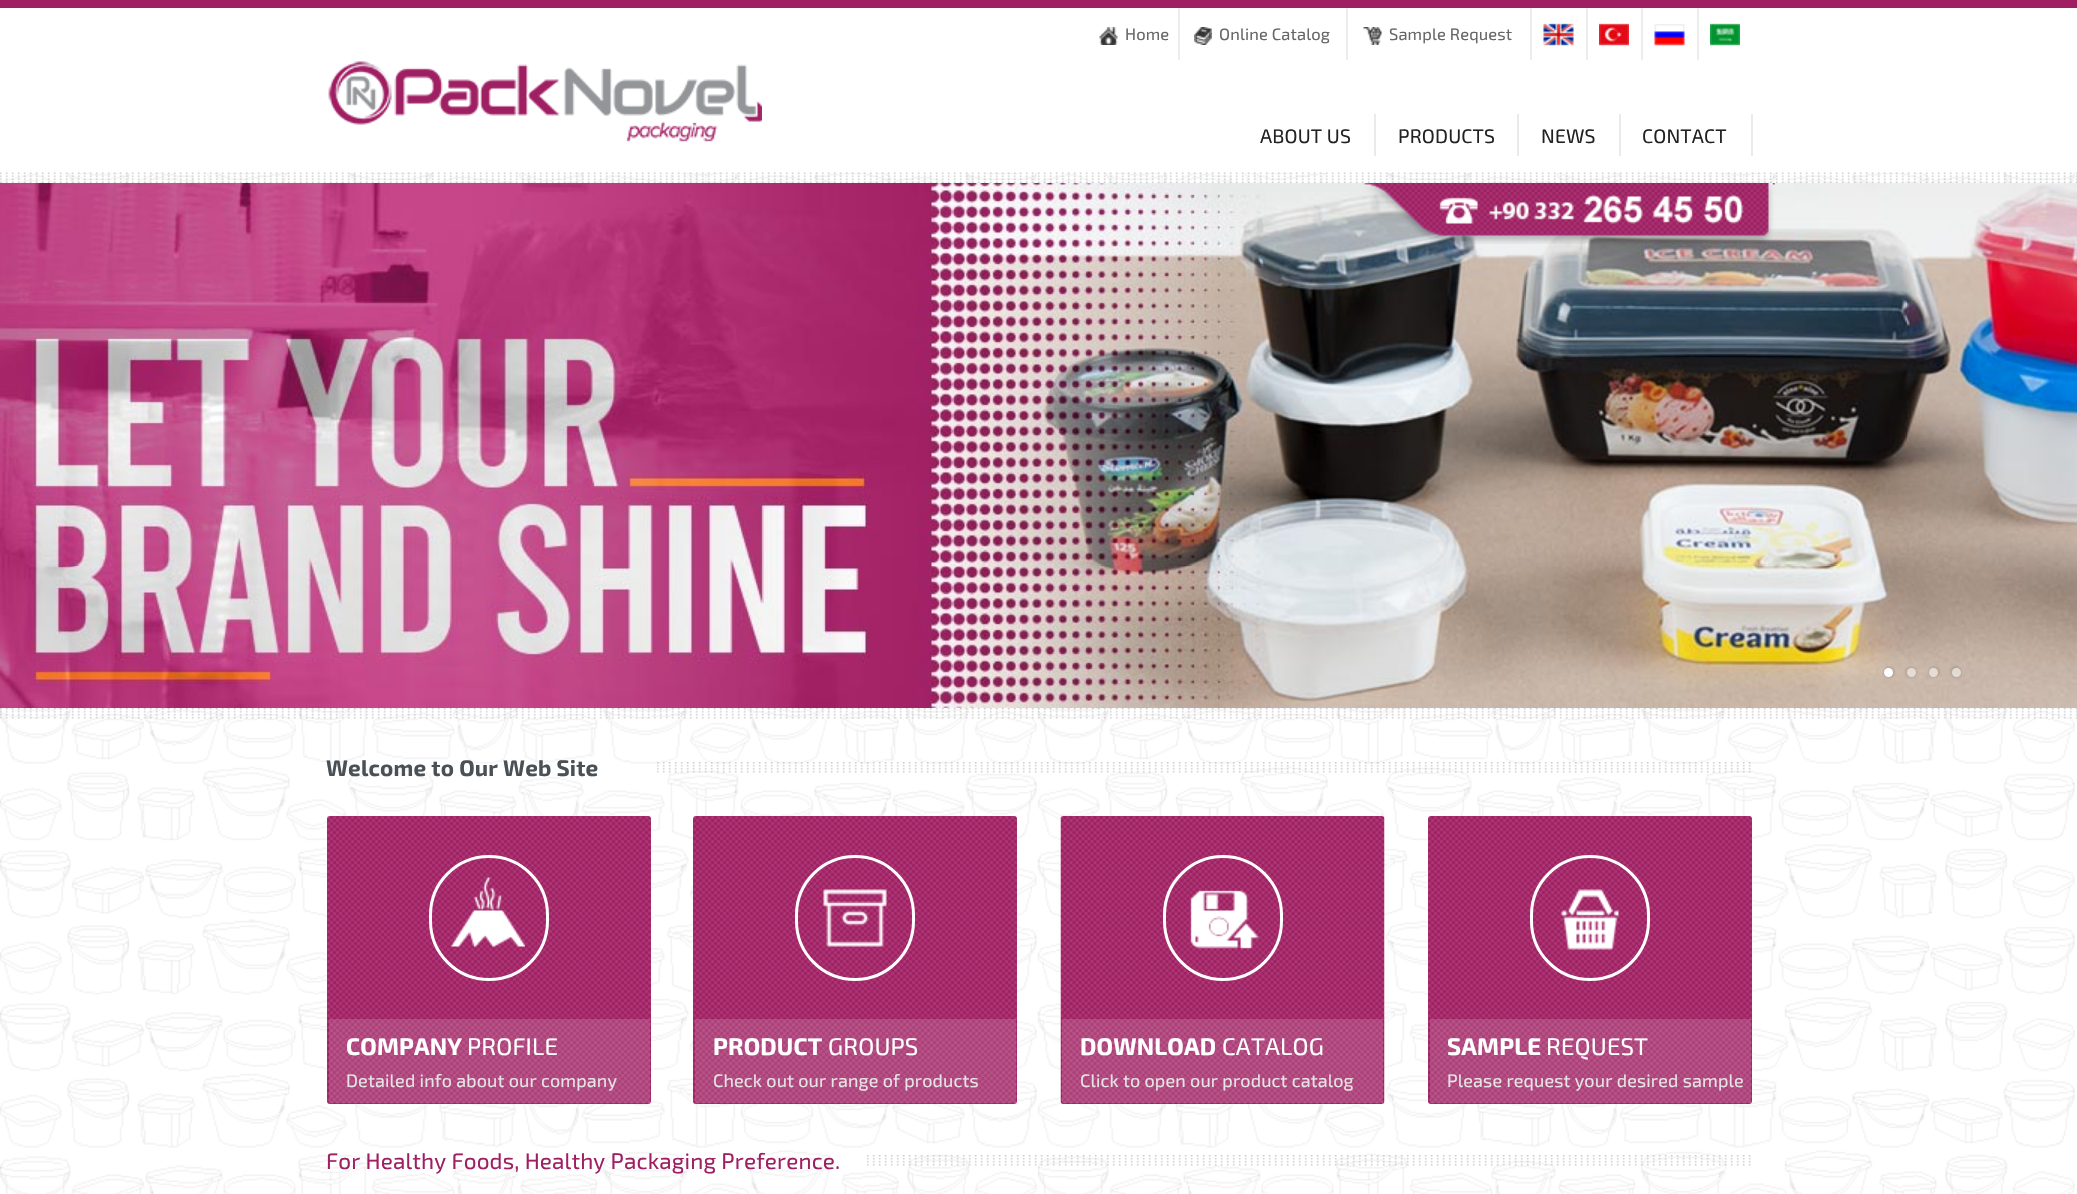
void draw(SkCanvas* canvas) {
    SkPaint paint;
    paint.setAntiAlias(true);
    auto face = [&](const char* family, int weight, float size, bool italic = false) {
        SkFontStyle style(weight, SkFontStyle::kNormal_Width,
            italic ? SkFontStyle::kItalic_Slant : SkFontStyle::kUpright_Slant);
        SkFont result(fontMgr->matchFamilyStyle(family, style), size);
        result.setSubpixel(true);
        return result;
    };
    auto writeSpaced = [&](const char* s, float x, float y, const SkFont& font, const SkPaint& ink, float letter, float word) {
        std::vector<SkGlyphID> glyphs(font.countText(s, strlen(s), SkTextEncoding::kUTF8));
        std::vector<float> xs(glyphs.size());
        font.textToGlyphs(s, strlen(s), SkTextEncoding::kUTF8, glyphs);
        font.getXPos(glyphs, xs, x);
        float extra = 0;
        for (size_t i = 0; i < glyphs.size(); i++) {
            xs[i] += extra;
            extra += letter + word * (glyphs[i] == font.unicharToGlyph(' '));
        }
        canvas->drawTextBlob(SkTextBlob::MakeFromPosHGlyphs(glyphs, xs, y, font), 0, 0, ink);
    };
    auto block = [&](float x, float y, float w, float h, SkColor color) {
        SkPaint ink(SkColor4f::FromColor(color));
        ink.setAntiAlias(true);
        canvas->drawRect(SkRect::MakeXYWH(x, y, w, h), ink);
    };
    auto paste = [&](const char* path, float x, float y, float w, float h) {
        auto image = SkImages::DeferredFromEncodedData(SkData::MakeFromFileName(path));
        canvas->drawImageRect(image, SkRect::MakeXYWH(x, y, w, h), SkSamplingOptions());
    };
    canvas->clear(SK_ColorWHITE);
    paste("pic1.png", 0, 173, 2075, 1021);
    block(0, 0, 2077, 8, SkColorSetRGB(159, 31, 99));
    paste("pic2.png", 328, 61, 434, 81);
    paste("pic3.png", 1099, 27, 19, 18);
    auto kFont1 = face("Exo 2", 400, 16.5f);
    paint.setColor(SkColorSetRGB(102, 102, 102));
    writeSpaced("Home", 1125, 40, kFont1, paint, 0.15f, 0);
    block(1178, 8, 2, 52, SkColorSetRGB(237, 237, 237));
    paste("pic4.png", 1194, 27, 18, 18);
    writeSpaced("Online Catalog", 1219, 40, kFont1, paint, 0.15f, 0);
    block(1346, 8, 2, 52, SkColorSetRGB(237, 237, 237));
    paste("pic5.png", 1363, 27, 19, 18);
    writeSpaced("Sample Request", 1389, 40, kFont1, paint, 0.15f, 0);
    block(1530, 8, 2, 52, SkColorSetRGB(237, 237, 237));
    paste("pic6.png", 1543, 23, 31, 23);
    block(1586, 8, 2, 52, SkColorSetRGB(237, 237, 237));
    paste("pic7.png", 1599, 23, 30, 23);
    block(1641, 8, 2, 52, SkColorSetRGB(237, 237, 237));
    paste("pic8.png", 1654, 24, 31, 22);
    block(1697, 8, 2, 52, SkColorSetRGB(237, 237, 237));
    paste("pic9.png", 1710, 23, 30, 23);
    auto kFont2 = face("Exo 2", 400, 19.5f);
    paint.setColor(SkColorSetRGB(34, 34, 34));
    writeSpaced("ABOUT US", 1260, 143, kFont2, paint, 0.15f, 0);
    block(1374, 114, 2, 42, SkColorSetRGB(234, 234, 234));
    writeSpaced("PRODUCTS", 1398, 143, kFont2, paint, 0.15f, 0);
    block(1517, 114, 2, 42, SkColorSetRGB(234, 234, 234));
    writeSpaced("NEWS", 1541, 143, kFont2, paint, 0.15f, 0);
    block(1619, 114, 2, 42, SkColorSetRGB(234, 234, 234));
    writeSpaced("CONTACT", 1642, 143, kFont2, paint, 0.15f, 0);
    block(1751, 114, 2, 42, SkColorSetRGB(234, 234, 234));
    paste("pic10.png", 0, 172, 2077, 11);
    paste("pic11.png", 0, 183, 2077, 525);
    paint.setColor(SkColorSetARGB(26, 0, 0, 0));
    paint.setMaskFilter(SkMaskFilter::MakeBlur(kNormal_SkBlurStyle, 1));
    canvas->drawRoundRect(SkRect::MakeXYWH(1883, 666, 12, 12), 6, 6, paint);
    paint.setMaskFilter(nullptr);
    paint.setColor(SK_ColorWHITE);
    canvas->drawCircle(1888.5f, 672.5f, 4.5f, paint);
    canvas->save();
    canvas->clipPath(SkPathBuilder(SkPathFillType::kEvenOdd).moveTo(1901, 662).lineTo(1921, 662).lineTo(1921, 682).lineTo(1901, 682).close().moveTo(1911.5f, 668).cubicTo(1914, 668, 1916, 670, 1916, 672.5f).cubicTo(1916, 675, 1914, 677, 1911.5f, 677).cubicTo(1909, 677, 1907, 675, 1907, 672.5f).cubicTo(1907, 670, 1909, 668, 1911.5f, 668).close().detach(), true);
    paint.setColor(SkColorSetARGB(26, 0, 0, 0));
    paint.setMaskFilter(SkMaskFilter::MakeBlur(kNormal_SkBlurStyle, 1));
    canvas->drawRoundRect(SkRect::MakeXYWH(1905, 666, 12, 12), 6, 6, paint);
    paint.setMaskFilter(nullptr);
    canvas->restore();
    paint.setColor(SkColorSetARGB(128, 255, 255, 255));
    canvas->drawCircle(1911.5f, 672.5f, 4.5f, paint);
    canvas->save();
    canvas->clipPath(SkPathBuilder(SkPathFillType::kEvenOdd).moveTo(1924, 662).lineTo(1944, 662).lineTo(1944, 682).lineTo(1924, 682).close().moveTo(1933.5f, 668).cubicTo(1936, 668, 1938, 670, 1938, 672.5f).cubicTo(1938, 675, 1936, 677, 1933.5f, 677).cubicTo(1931, 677, 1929, 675, 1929, 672.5f).cubicTo(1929, 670, 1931, 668, 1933.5f, 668).close().detach(), true);
    paint.setColor(SkColorSetARGB(26, 0, 0, 0));
    paint.setMaskFilter(SkMaskFilter::MakeBlur(kNormal_SkBlurStyle, 1));
    canvas->drawRoundRect(SkRect::MakeXYWH(1928, 666, 12, 12), 6, 6, paint);
    paint.setMaskFilter(nullptr);
    canvas->restore();
    paint.setColor(SkColorSetARGB(128, 255, 255, 255));
    canvas->drawCircle(1933.5f, 672.5f, 4.5f, paint);
    canvas->save();
    canvas->clipPath(SkPathBuilder(SkPathFillType::kEvenOdd).moveTo(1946, 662).lineTo(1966, 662).lineTo(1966, 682).lineTo(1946, 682).close().moveTo(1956.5f, 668).cubicTo(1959, 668, 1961, 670, 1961, 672.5f).cubicTo(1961, 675, 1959, 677, 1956.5f, 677).cubicTo(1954, 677, 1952, 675, 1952, 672.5f).cubicTo(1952, 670, 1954, 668, 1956.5f, 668).close().detach(), true);
    paint.setColor(SkColorSetARGB(26, 0, 0, 0));
    paint.setMaskFilter(SkMaskFilter::MakeBlur(kNormal_SkBlurStyle, 1));
    canvas->drawRoundRect(SkRect::MakeXYWH(1950, 666, 12, 12), 6, 6, paint);
    paint.setMaskFilter(nullptr);
    canvas->restore();
    paint.setColor(SkColorSetARGB(128, 255, 255, 255));
    canvas->drawCircle(1956.5f, 672.5f, 4.5f, paint);
    paste("pic12.png", 1363, 183, 412, 61);
    paste("pic13.png", 0, 708, 2077, 11);
    auto kFont3 = face("Exo 2", 700, 22.5f);
    paint.setColor(SkColorSetRGB(73, 80, 86));
    writeSpaced("Welcome to Our Web Site", 326, 776, kFont3, paint, 0.15f, 0);
    paste("pic14.png", 657, 762, 1094, 11);
    paste("pic15.png", 327, 816, 324, 288);
    paint.setStyle(SkPaint::kStroke_Style);
    paint.setStrokeWidth(3);
    paint.setColor(SK_ColorWHITE);
    canvas->drawRoundRect(SkRect::MakeXYWH(430.5f, 856.5f, 117, 123), 58.5f, 58.5f, paint);
    paste("pic16.png", 451, 877, 74, 70);
    block(329, 1019, 321, 84, SkColorSetARGB(36, 255, 255, 255));
    auto kFont4 = face("Exo 2", 700, 24);
    paint.setStyle(SkPaint::kFill_Style);
    writeSpaced("COMPANY", 346, 1055, kFont4, paint, 0.15f, 0);
    auto kFont5 = face("Exo 2", 400, 24);
    writeSpaced("PROFILE", 467, 1055, kFont5, paint, 0.15f, 0);
    auto kFont6 = face("Exo 2", 400, 18);
    paint.setColor(SkColorSetRGB(229, 229, 229));
    writeSpaced("Detailed info about our company", 346, 1087, kFont6, paint, 0.15f, 0);
    paste("pic17.png", 693, 816, 324, 288);
    paint.setStyle(SkPaint::kStroke_Style);
    paint.setColor(SK_ColorWHITE);
    canvas->drawRoundRect(SkRect::MakeXYWH(796.5f, 856.5f, 117, 123), 58.5f, 58.5f, paint);
    paste("pic18.png", 823, 889, 64, 58);
    block(695, 1019, 321, 84, SkColorSetARGB(36, 255, 255, 255));
    paint.setStyle(SkPaint::kFill_Style);
    writeSpaced("PRODUCT", 713, 1055, kFont4, paint, 0.15f, 0);
    writeSpaced("GROUPS", 828, 1055, kFont5, paint, 0.15f, 0);
    paint.setColor(SkColorSetRGB(229, 229, 229));
    writeSpaced("Check out our range of products", 713, 1087, kFont6, paint, 0.15f, 0);
    paste("pic19.png", 1060, 816, 325, 288);
    paint.setStyle(SkPaint::kStroke_Style);
    paint.setColor(SK_ColorWHITE);
    canvas->drawRoundRect(SkRect::MakeXYWH(1164.5f, 856.5f, 117, 123), 58.5f, 58.5f, paint);
    paste("pic20.png", 1190, 890, 69, 59);
    block(1062, 1019, 321, 84, SkColorSetARGB(36, 255, 255, 255));
    paint.setStyle(SkPaint::kFill_Style);
    writeSpaced("DOWNLOAD", 1080, 1055, kFont4, paint, 0.15f, 0);
    writeSpaced("CATALOG", 1222, 1055, kFont5, paint, 0.15f, 0);
    paint.setColor(SkColorSetRGB(229, 229, 229));
    writeSpaced("Click to open our product catalog", 1080, 1087, kFont6, paint, 0.15f, 0);
    paste("pic21.png", 1428, 816, 324, 288);
    paint.setStyle(SkPaint::kStroke_Style);
    paint.setColor(SK_ColorWHITE);
    canvas->drawRoundRect(SkRect::MakeXYWH(1531.5f, 856.5f, 117, 123), 58.5f, 58.5f, paint);
    paste("pic22.png", 1561, 889, 58, 61);
    block(1430, 1019, 321, 84, SkColorSetARGB(36, 255, 255, 255));
    paint.setStyle(SkPaint::kFill_Style);
    writeSpaced("SAMPLE", 1447, 1055, kFont4, paint, 0.15f, 0);
    writeSpaced("REQUEST", 1546, 1055, kFont5, paint, 0.15f, 0);
    paint.setColor(SkColorSetRGB(229, 229, 229));
    writeSpaced("Please request your desired sample", 1447, 1087, kFont6, paint, 0.15f, 0);
    auto kFont7 = face("Exo 2", 400, 22.5f);
    paint.setColor(SkColorSetRGB(159, 31, 99));
    writeSpaced("For Healthy Foods, Healthy Packaging Preference.", 326, 1169, kFont7, paint, 0.15f, 0);
    paste("pic23.png", 867, 1155, 884, 11);
}
